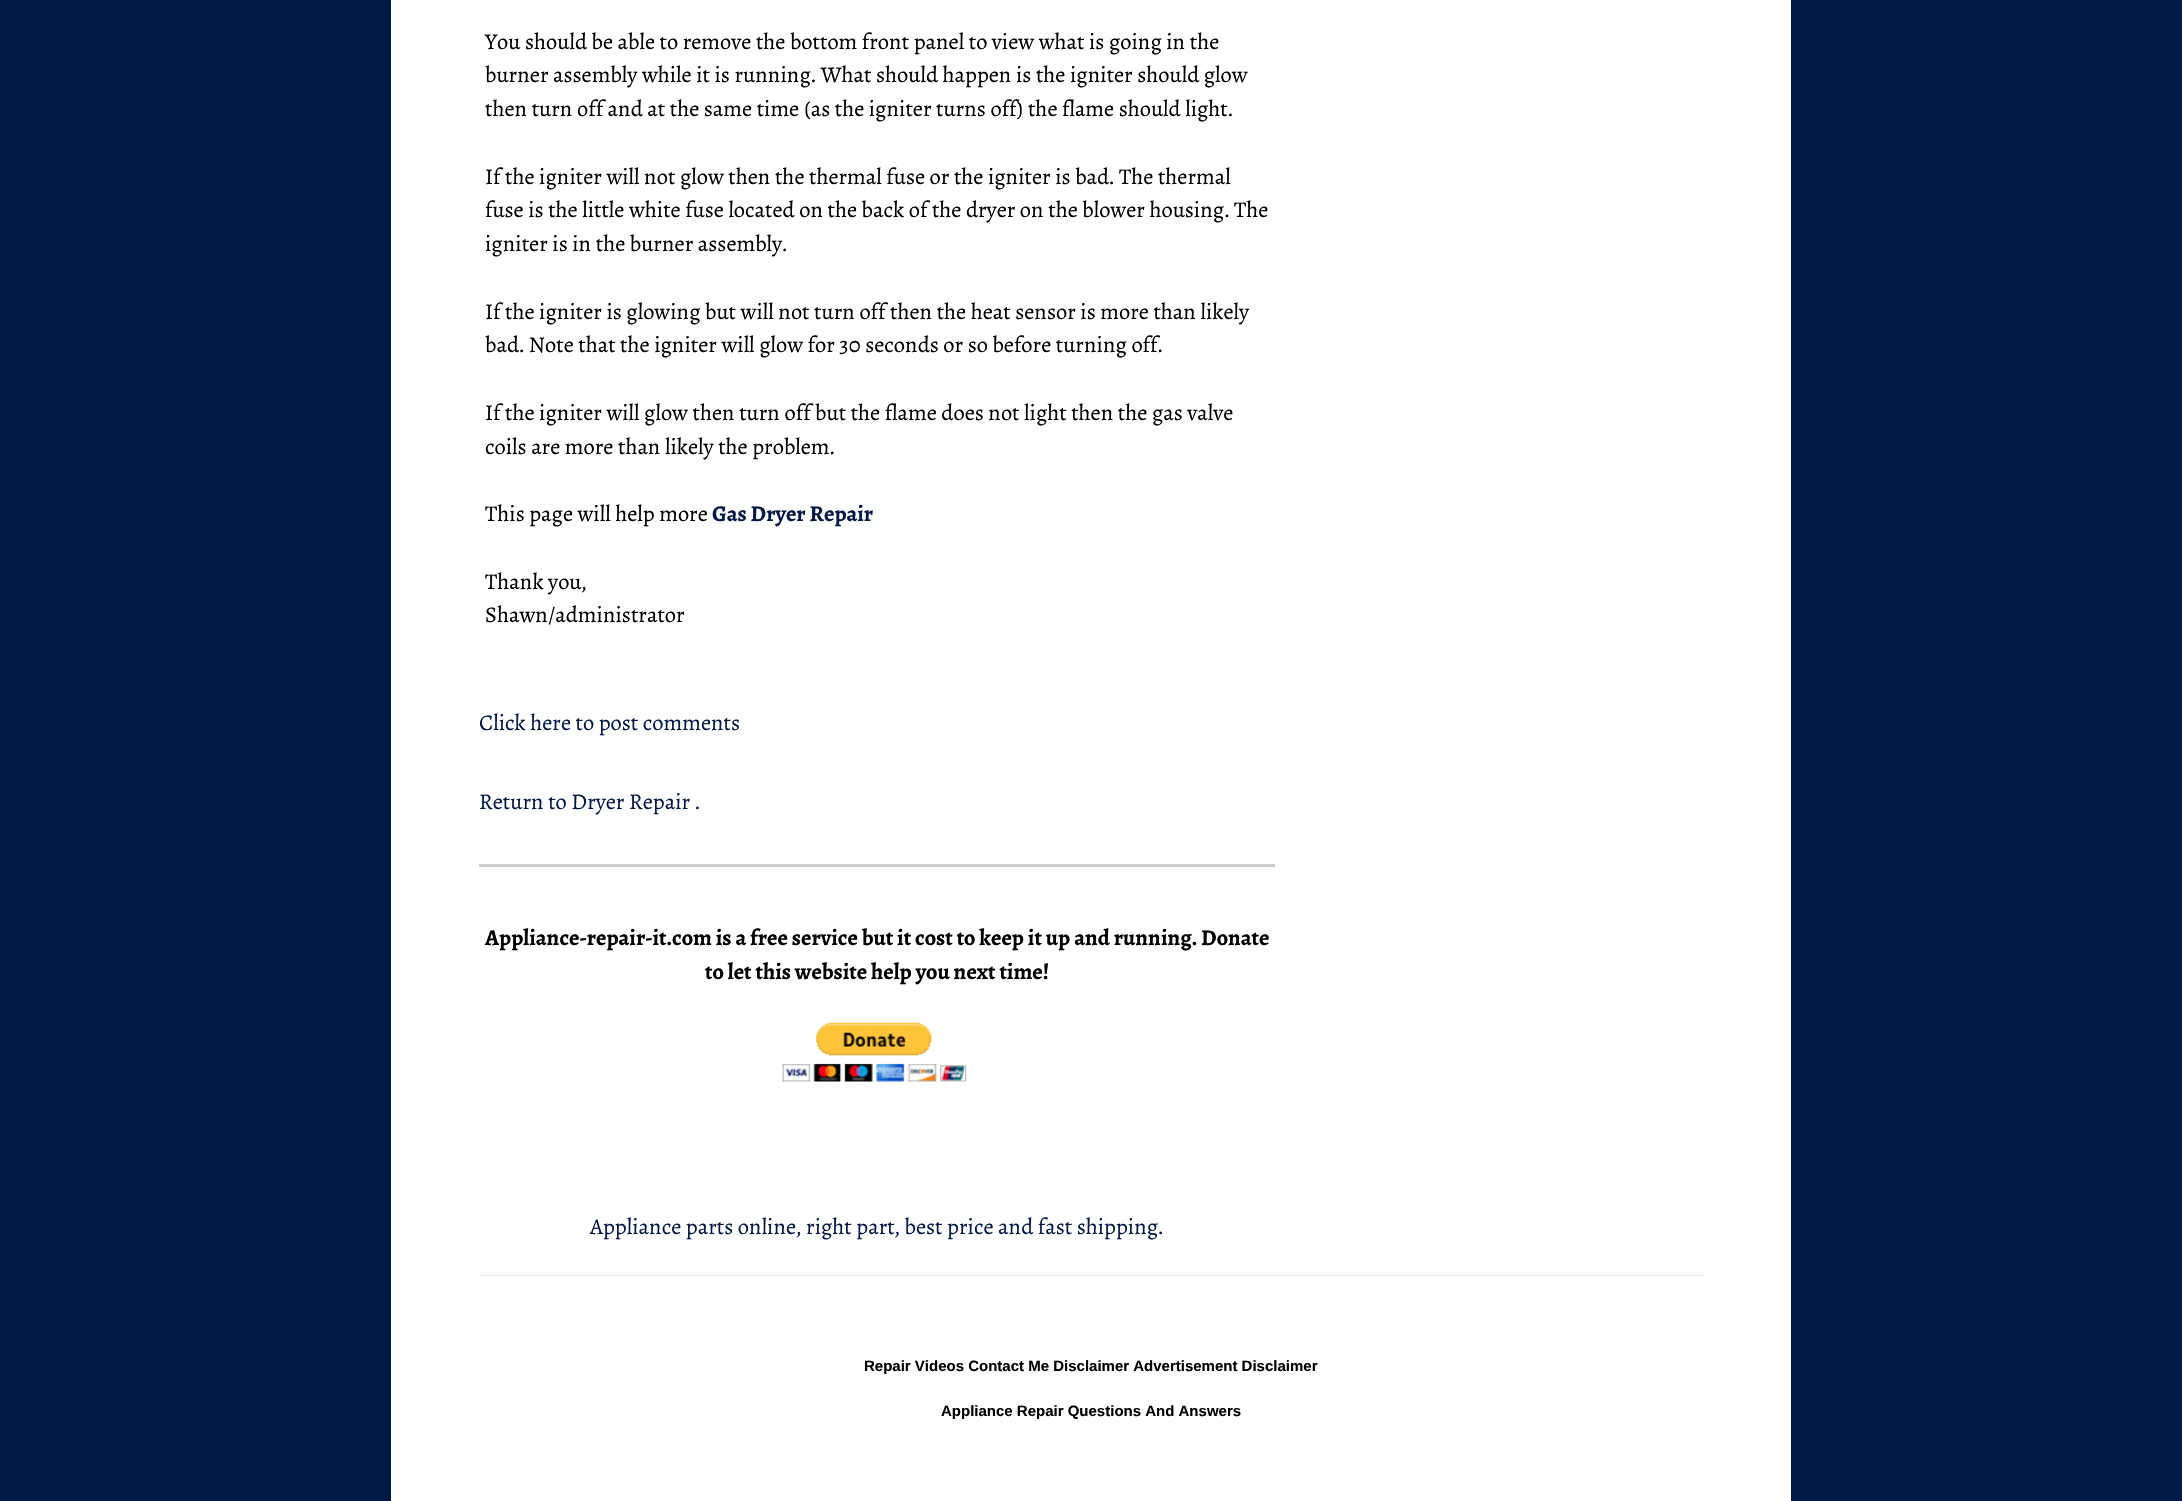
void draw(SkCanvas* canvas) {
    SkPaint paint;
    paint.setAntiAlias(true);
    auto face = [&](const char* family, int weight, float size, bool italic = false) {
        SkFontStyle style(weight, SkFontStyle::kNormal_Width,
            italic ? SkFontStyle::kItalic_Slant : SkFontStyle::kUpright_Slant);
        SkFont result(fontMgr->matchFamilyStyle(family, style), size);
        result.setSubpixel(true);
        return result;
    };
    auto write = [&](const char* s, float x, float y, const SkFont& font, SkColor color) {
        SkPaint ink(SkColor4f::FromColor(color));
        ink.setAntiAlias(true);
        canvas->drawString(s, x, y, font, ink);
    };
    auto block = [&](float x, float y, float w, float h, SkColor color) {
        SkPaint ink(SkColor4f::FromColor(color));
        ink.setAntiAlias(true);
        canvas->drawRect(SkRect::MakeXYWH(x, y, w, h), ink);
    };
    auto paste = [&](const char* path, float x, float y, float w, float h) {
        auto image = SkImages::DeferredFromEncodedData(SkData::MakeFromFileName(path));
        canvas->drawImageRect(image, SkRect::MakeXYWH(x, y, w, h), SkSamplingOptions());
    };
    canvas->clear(SkColorSetRGB(3, 25, 69));
    block(391, 0, 1400, 1501, SK_ColorWHITE);
    auto kFont1 = face("Alegreya", 400, 22.5f);
    write("You should be able to remove the bottom front panel to view what is going in the", 485, 49, kFont1, SK_ColorBLACK);
    write("burner assembly while it is running. What should happen is the igniter should glow", 485, 82, kFont1, SK_ColorBLACK);
    write("then turn off and at the same time (as the igniter turns off) the flame should light.", 485, 116, kFont1, SK_ColorBLACK);
    write("If the igniter will not glow then the thermal fuse or the igniter is bad. The thermal", 485, 184, kFont1, SK_ColorBLACK);
    write("fuse is the little white fuse located on the back of the dryer on the blower housing. The", 485, 217, kFont1, SK_ColorBLACK);
    write("igniter is in the burner assembly.", 485, 251, kFont1, SK_ColorBLACK);
    write("If the igniter is glowing but will not turn off then the heat sensor is more than likely", 485, 319, kFont1, SK_ColorBLACK);
    write("bad. Note that the igniter will glow for 30 seconds or so before turning off.", 485, 352, kFont1, SK_ColorBLACK);
    write("If the igniter will glow then turn off but the flame does not light then the gas valve", 485, 420, kFont1, SK_ColorBLACK);
    write("coils are more than likely the problem.", 485, 454, kFont1, SK_ColorBLACK);
    write("This page will help more", 485, 521, kFont1, SK_ColorBLACK);
    auto kFont2 = face("Alegreya", 700, 22.5f);
    write("Gas Dryer Repair", 712, 521, kFont2, SkColorSetRGB(3, 25, 69));
    write("Thank you,", 485, 589, kFont1, SK_ColorBLACK);
    write("Shawn/administrator", 485, 622, kFont1, SK_ColorBLACK);
    write("Click here to post comments", 479, 730, kFont1, SkColorSetRGB(3, 25, 69));
    write("Return to Dryer Repair .", 479, 809, kFont1, SkColorSetRGB(3, 25, 69));
    block(479, 864, 796, 3, SkColorSetRGB(204, 204, 204));
    write("Appliance-repair-it.com is a free service but it cost to keep it up and running. Donate", 485, 945, kFont2, SK_ColorBLACK);
    write("to let this website help you next time!", 705, 979, kFont2, SK_ColorBLACK);
    paste("pic1.png", 782, 1022, 185, 60);
    write("Appliance parts online, right part, best price and fast shipping.", 590, 1234, kFont1, SkColorSetRGB(3, 25, 69));
    block(479, 1275, 1225, 1, SkColorSetRGB(229, 229, 229));
    auto kFont3 = face("Liberation Sans", 700, 15);
    write("Repair Videos Contact Me Disclaimer Advertisement Disclaimer", 864, 1371, kFont3, SK_ColorBLACK);
    write("Appliance Repair Questions And Answers", 941, 1416, kFont3, SK_ColorBLACK);
}
